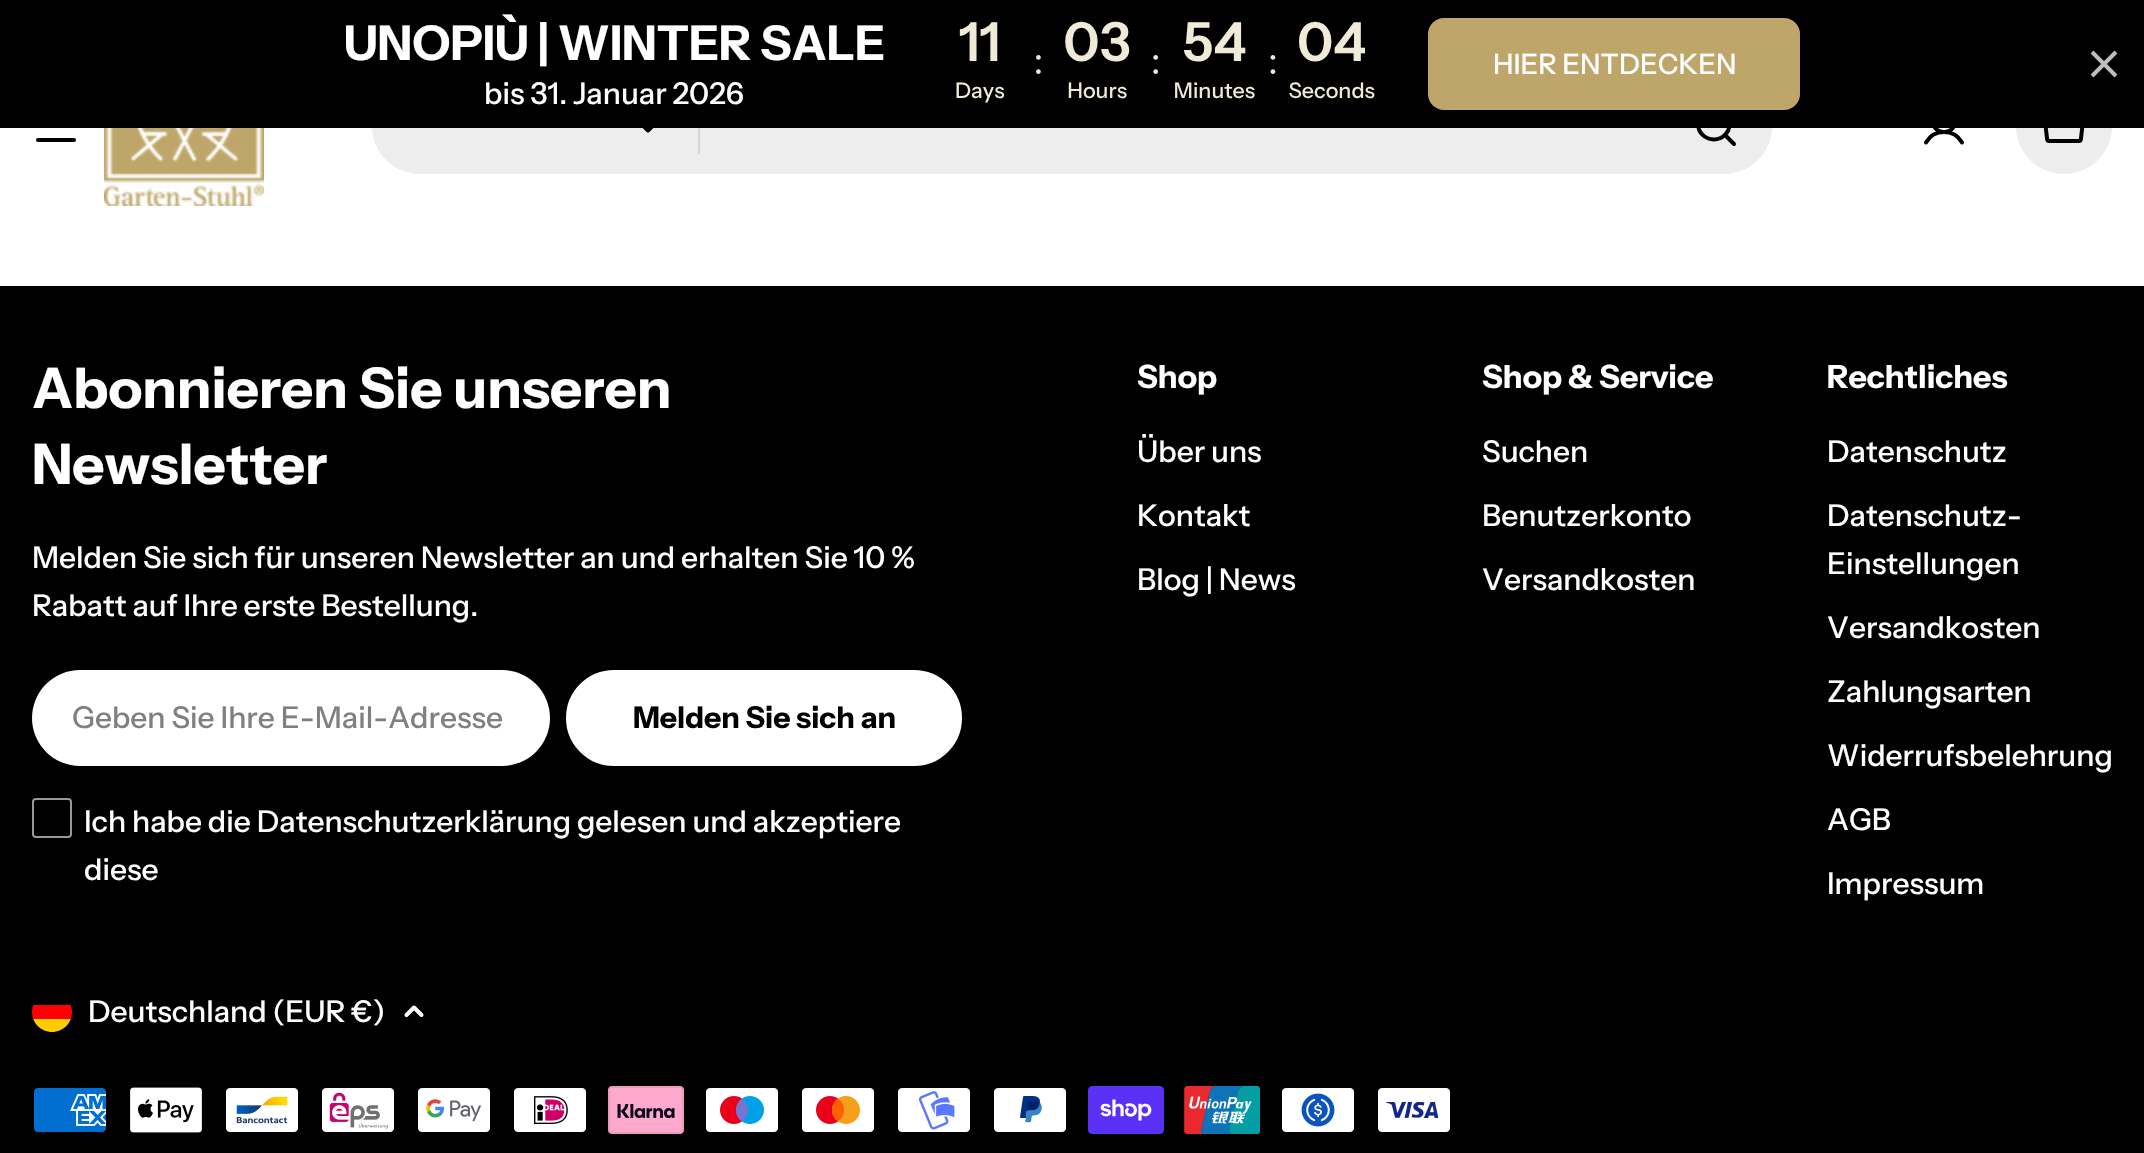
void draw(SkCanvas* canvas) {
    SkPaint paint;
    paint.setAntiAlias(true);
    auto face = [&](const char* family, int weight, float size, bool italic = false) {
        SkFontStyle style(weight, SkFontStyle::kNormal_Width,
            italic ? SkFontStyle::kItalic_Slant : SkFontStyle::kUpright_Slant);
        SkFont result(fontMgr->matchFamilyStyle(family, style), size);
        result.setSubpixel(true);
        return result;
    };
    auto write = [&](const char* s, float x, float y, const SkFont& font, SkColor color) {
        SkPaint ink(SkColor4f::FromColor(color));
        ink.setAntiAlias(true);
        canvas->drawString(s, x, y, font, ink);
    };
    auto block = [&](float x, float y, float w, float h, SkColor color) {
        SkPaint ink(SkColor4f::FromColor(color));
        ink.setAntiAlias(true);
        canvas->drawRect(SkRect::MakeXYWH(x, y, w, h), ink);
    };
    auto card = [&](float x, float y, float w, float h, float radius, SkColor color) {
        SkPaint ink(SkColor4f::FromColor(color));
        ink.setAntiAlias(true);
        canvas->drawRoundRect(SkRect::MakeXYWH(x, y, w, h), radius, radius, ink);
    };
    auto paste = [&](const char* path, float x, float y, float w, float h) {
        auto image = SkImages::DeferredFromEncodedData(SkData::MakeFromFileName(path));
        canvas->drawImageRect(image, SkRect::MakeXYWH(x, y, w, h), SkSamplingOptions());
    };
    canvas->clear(SK_ColorBLACK);
    block(0, 128, 2144, 158, SK_ColorWHITE);
    card(372, 78, 1400, 96, 48, SkColorSetRGB(237, 237, 237));
    paint.setStyle(SkPaint::kStroke_Style);
    paint.setStrokeWidth(4);
    paint.setStrokeCap(SkPaint::kRound_Cap);
    paint.setStrokeJoin(SkPaint::kRound_Join);
    paint.setColor(SK_ColorBLACK);
    canvas->drawPath(SkPathBuilder().moveTo(655.5f, 123).lineTo(648, 130.5f).lineTo(640.5f, 123).detach(), paint);
    canvas->drawPath(SkPathBuilder().moveTo(1714, 139.5f).cubicTo(1722.5f, 139.5f, 1729.5f, 132.5f, 1729.5f, 124).cubicTo(1729.5f, 115, 1722.5f, 108, 1714, 108).cubicTo(1705, 108, 1698, 115, 1698, 124).cubicTo(1698, 132.5f, 1705, 139.5f, 1714, 139.5f).close().moveTo(1725, 135).lineTo(1734, 144).detach(), paint);
    canvas->drawPath(SkPathBuilder().moveTo(1944, 132).cubicTo(1959.5f, 132, 1959.5f, 108, 1944, 108).cubicTo(1928.5f, 108, 1928.5f, 132, 1944, 132).close().moveTo(1926, 142.5f).cubicTo(1934, 128.5f, 1954, 128.5f, 1962, 142.5f).detach(), paint);
    paint.setStyle(SkPaint::kFill_Style);
    paint.setColor(SkColorSetRGB(237, 237, 237));
    canvas->drawCircle(2064, 126, 48, paint);
    block(372, 78, 1740, 50, SK_ColorBLACK);
    auto kFont1 = face("Instrument Sans", 700, 48);
    write("UNOPIÙ | WINTER SALE", 344, 60, kFont1, SK_ColorWHITE);
    auto kFont2 = face("Instrument Sans", 500, 30);
    write("bis 31. Januar 2026", 484, 104, kFont2, SK_ColorWHITE);
    paste("pic1.png", 956, 21, 419, 82);
    card(1428, 18, 372, 92, 16, SkColorSetRGB(190, 166, 106));
    auto kFont3 = face("Instrument Sans", 500, 28);
    write("HIER ENTDECKEN", 1493, 74, kFont3, SK_ColorWHITE);
    paint.setStyle(SkPaint::kStroke_Style);
    paint.setStrokeCap(SkPaint::kButt_Cap);
    paint.setStrokeJoin(SkPaint::kMiter_Join);
    paint.setColor(SkColorSetRGB(189, 189, 189));
    canvas->drawPath(SkPathBuilder().moveTo(2116, 52).lineTo(2092, 76).moveTo(2116, 76).lineTo(2092, 52).detach(), paint);
    card(36, 138, 40, 4, 2, SK_ColorBLACK);
    paste("pic2.png", 104, 128, 160, 78);
    block(698, 128, 2, 26, SkColorSetRGB(213, 213, 213));
    paste("pic3.png", 2043, 128, 42, 15);
    auto kFont4 = face("Instrument Sans", 700, 56);
    write("Abonnieren Sie unseren", 32, 408, kFont4, SK_ColorWHITE);
    write("Newsletter", 32, 484, kFont4, SK_ColorWHITE);
    write("Melden Sie sich für unseren Newsletter an und erhalten Sie 10 %", 32, 568, kFont2, SK_ColorWHITE);
    write("Rabatt auf Ihre erste Bestellung.", 32, 616, kFont2, SK_ColorWHITE);
    card(32, 670, 518, 96, 48, SK_ColorWHITE);
    write("Geben Sie Ihre E-Mail-Adresse", 72, 728, kFont2, SkColorSetRGB(128, 128, 128));
    paint.setStyle(SkPaint::kFill_Style);
    paint.setColor(SK_ColorWHITE);
    canvas->drawRoundRect(SkRect::MakeXYWH(567, 671, 394, 94), 47, 47, paint);
    paint.setStyle(SkPaint::kStroke_Style);
    paint.setStrokeWidth(2);
    canvas->drawRoundRect(SkRect::MakeXYWH(567, 671, 394, 94), 47, 47, paint);
    auto kFont5 = face("Instrument Sans", 700, 30);
    write("Melden Sie sich an", 633, 728, kFont5, SK_ColorBLACK);
    paint.setColor(SkColorSetRGB(153, 153, 153));
    canvas->drawRoundRect(SkRect::MakeXYWH(33, 799, 38, 38), 3, 3, paint);
    write("Ich habe die Datenschutzerklärung gelesen und akzeptiere", 84, 832, kFont2, SK_ColorWHITE);
    write("diese", 84, 880, kFont2, SK_ColorWHITE);
    auto kFont6 = face("Instrument Sans", 700, 32);
    write("Shop", 1137, 388, kFont6, SK_ColorWHITE);
    write("Über uns", 1137, 462, kFont2, SK_ColorWHITE);
    write("Kontakt", 1137, 526, kFont2, SK_ColorWHITE);
    write("Blog | News", 1137, 590, kFont2, SK_ColorWHITE);
    write("Shop & Service", 1482, 388, kFont6, SK_ColorWHITE);
    write("Suchen", 1482, 462, kFont2, SK_ColorWHITE);
    write("Benutzerkonto", 1482, 526, kFont2, SK_ColorWHITE);
    write("Versandkosten", 1482, 590, kFont2, SK_ColorWHITE);
    write("Rechtliches", 1827, 388, kFont6, SK_ColorWHITE);
    write("Datenschutz", 1827, 462, kFont2, SK_ColorWHITE);
    write("Datenschutz-", 1827, 526, kFont2, SK_ColorWHITE);
    write("Einstellungen", 1827, 574, kFont2, SK_ColorWHITE);
    write("Versandkosten", 1827, 638, kFont2, SK_ColorWHITE);
    write("Zahlungsarten", 1827, 702, kFont2, SK_ColorWHITE);
    write("Widerrufsbelehrung", 1827, 766, kFont2, SK_ColorWHITE);
    write("AGB", 1827, 830, kFont2, SK_ColorWHITE);
    write("Impressum", 1827, 894, kFont2, SK_ColorWHITE);
    canvas->save();
    canvas->clipPath(SkPathBuilder().moveTo(52, 992).cubicTo(63, 992, 72, 1001, 72, 1012).cubicTo(72, 1023, 63, 1032, 52, 1032).cubicTo(41, 1032, 32, 1023, 32, 1012).cubicTo(32, 1001, 41, 992, 52, 992).close().detach(), true);
    block(33, 1019, 38, 13, SkColorSetRGB(255, 204, 0));
    block(32, 1005, 40, 14, SkColorSetRGB(255, 0, 0));
    canvas->restore();
    write("Deutschland (EUR €)", 88, 1022, kFont2, SK_ColorWHITE);
    paint.setStrokeWidth(4);
    paint.setStrokeCap(SkPaint::kRound_Cap);
    paint.setStrokeJoin(SkPaint::kRound_Join);
    paint.setColor(SK_ColorWHITE);
    canvas->drawPath(SkPathBuilder().moveTo(406.5f, 1015).lineTo(414, 1007.5f).lineTo(421.5f, 1015).detach(), paint);
    paste("pic4.png", 34, 1088, 72, 44);
    paste("pic5.png", 130, 1087, 72, 46);
    paste("pic6.png", 226, 1088, 72, 44);
    paste("pic7.png", 322, 1088, 72, 44);
    paste("pic8.png", 418, 1088, 72, 44);
    paste("pic9.png", 514, 1088, 72, 44);
    paste("pic10.png", 608, 1086, 76, 48);
    paste("pic11.png", 706, 1088, 72, 44);
    paste("pic12.png", 802, 1088, 72, 44);
    paste("pic13.png", 898, 1088, 72, 44);
    paste("pic14.png", 994, 1088, 72, 44);
    paste("pic15.png", 1088, 1086, 76, 48);
    paste("pic16.png", 1184, 1086, 76, 48);
    paste("pic17.png", 1282, 1088, 72, 44);
    paste("pic18.png", 1378, 1088, 72, 44);
}
